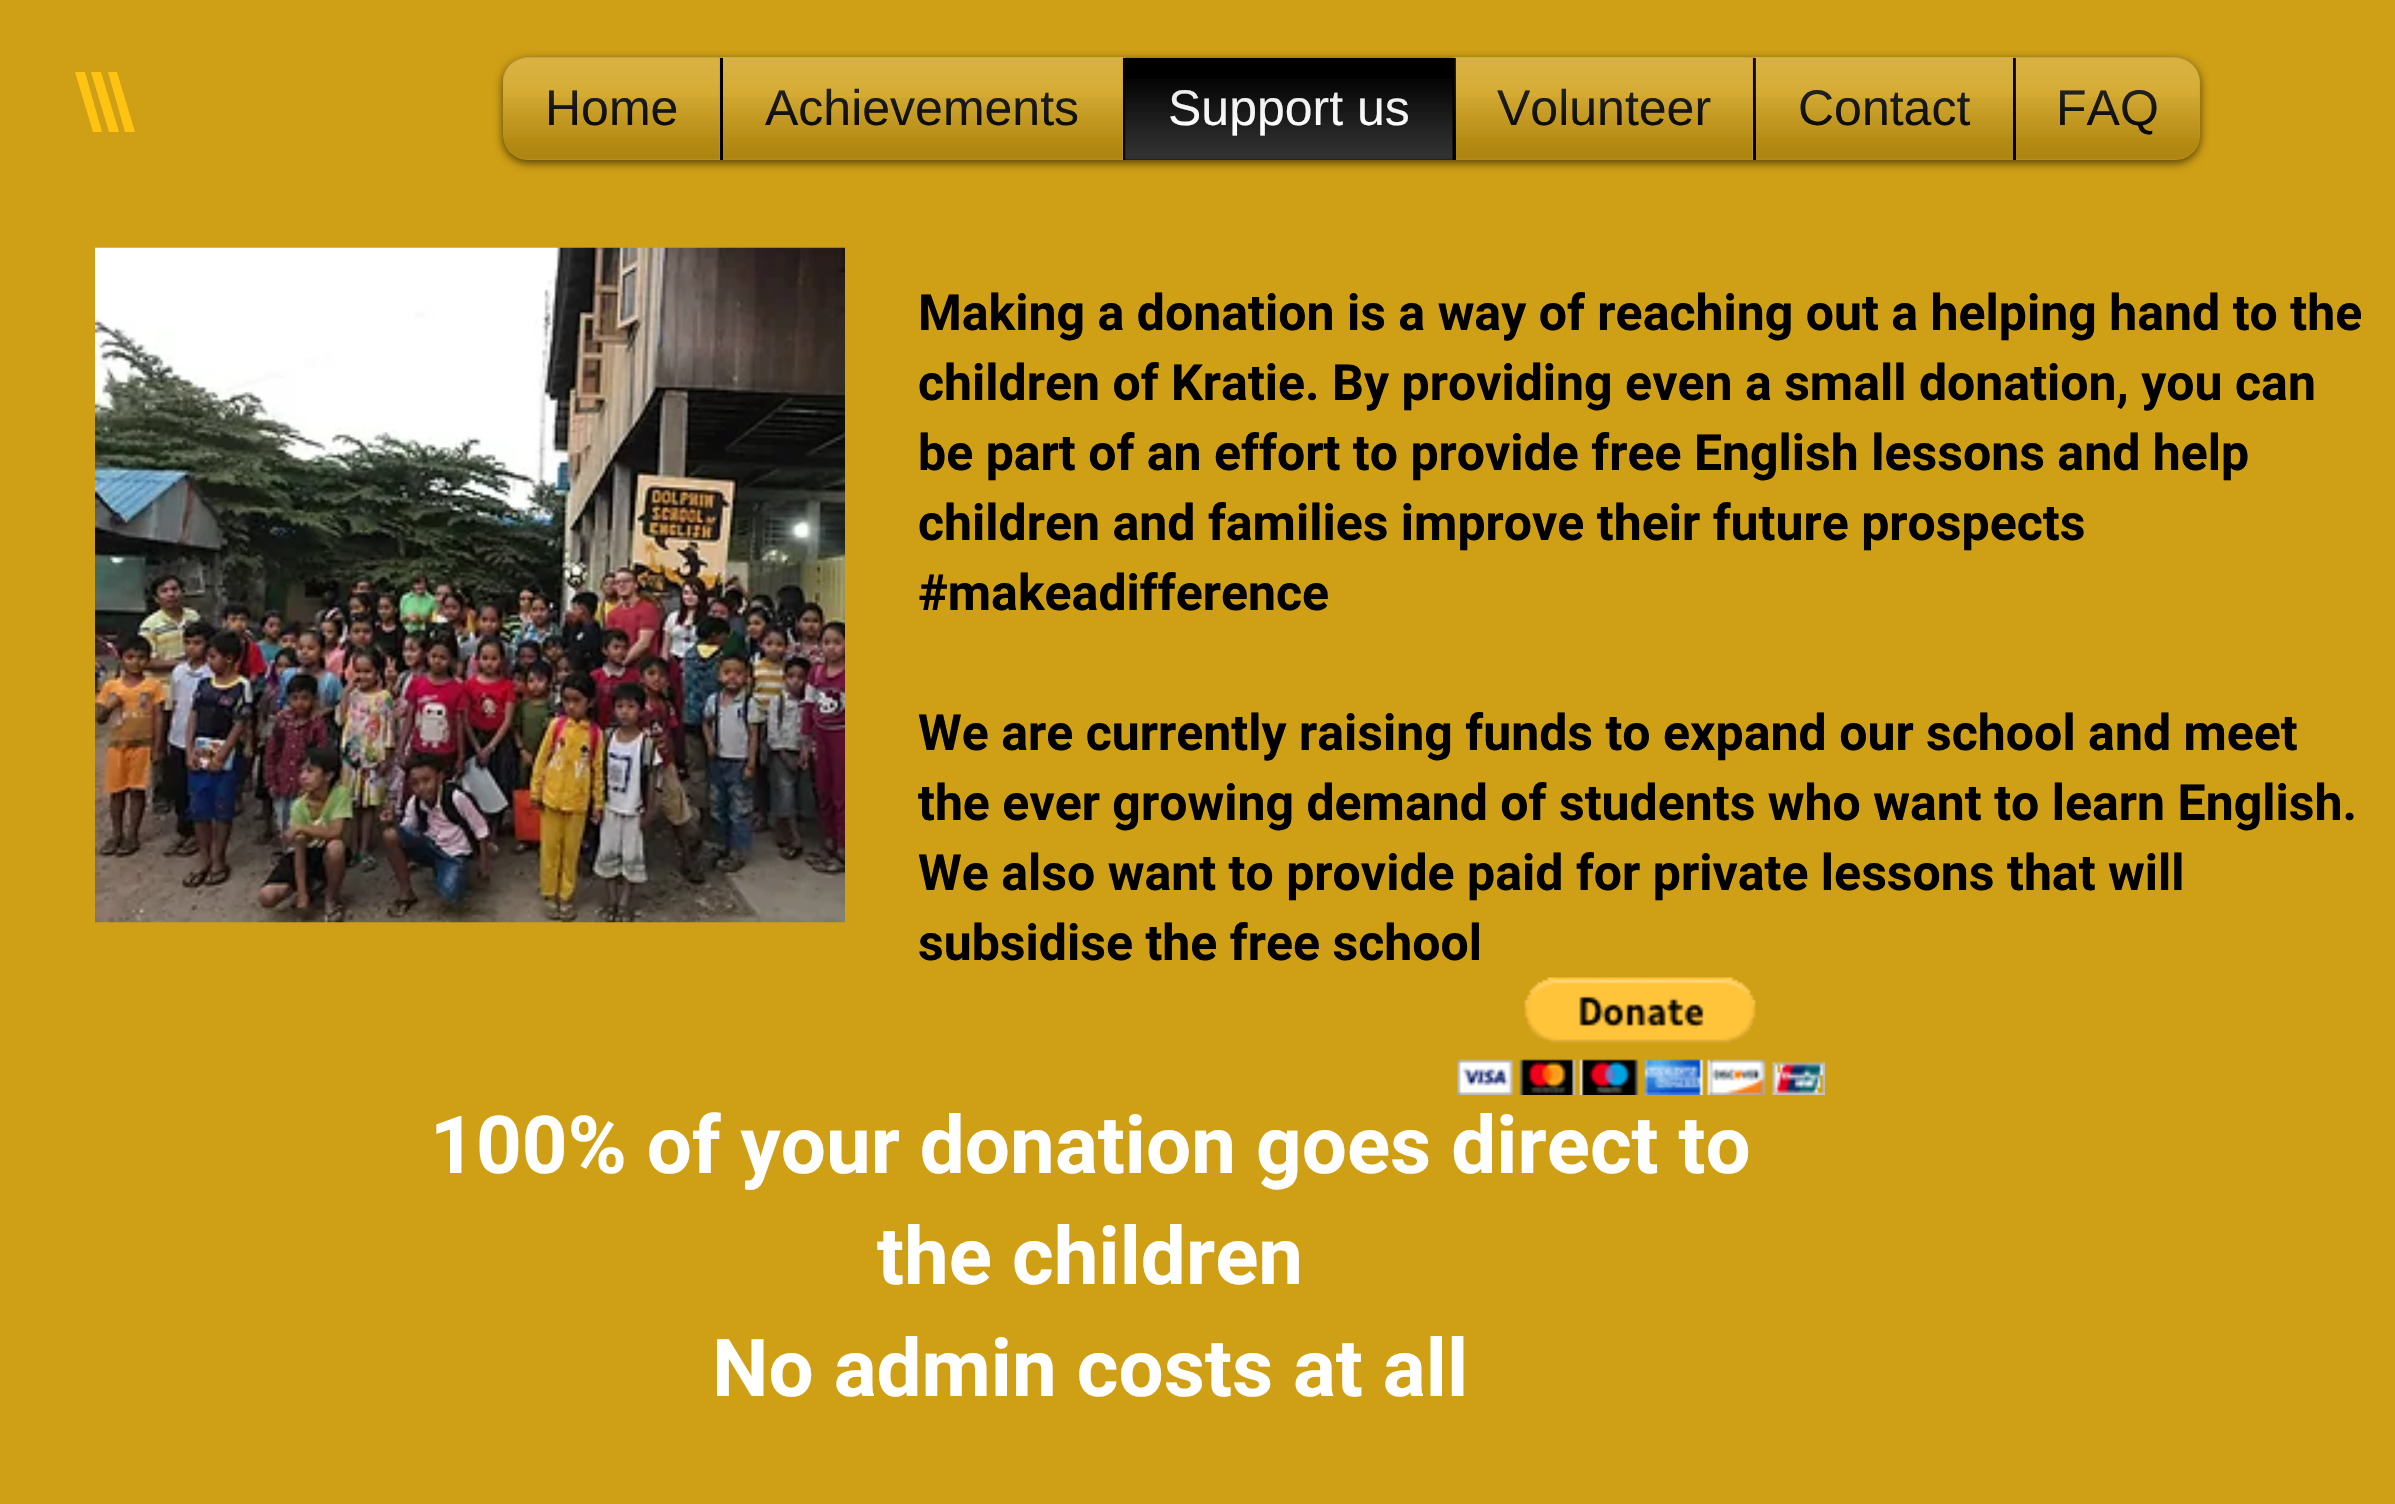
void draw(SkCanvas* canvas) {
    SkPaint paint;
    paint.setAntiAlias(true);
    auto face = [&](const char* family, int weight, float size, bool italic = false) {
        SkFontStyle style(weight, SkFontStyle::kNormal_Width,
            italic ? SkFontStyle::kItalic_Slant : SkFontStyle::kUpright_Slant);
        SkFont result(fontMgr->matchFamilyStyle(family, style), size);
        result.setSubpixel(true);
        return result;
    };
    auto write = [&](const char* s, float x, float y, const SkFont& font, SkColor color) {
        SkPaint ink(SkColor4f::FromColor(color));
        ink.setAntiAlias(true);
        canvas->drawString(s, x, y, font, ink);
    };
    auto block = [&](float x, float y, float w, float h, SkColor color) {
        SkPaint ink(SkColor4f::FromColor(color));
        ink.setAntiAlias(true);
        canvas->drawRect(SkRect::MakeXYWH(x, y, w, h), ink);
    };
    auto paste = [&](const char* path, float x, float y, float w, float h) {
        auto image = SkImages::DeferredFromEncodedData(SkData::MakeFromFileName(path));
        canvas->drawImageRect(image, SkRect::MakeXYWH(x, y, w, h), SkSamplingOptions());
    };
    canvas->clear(SkColorSetRGB(207, 159, 21));
    paint.setColor(SkColorSetRGB(255, 195, 20));
    canvas->drawPath(SkPathBuilder().moveTo(75, 72).lineTo(93, 132).lineTo(102, 132).lineTo(85, 72).close().detach(), paint);
    canvas->drawPath(SkPathBuilder().moveTo(91, 72).lineTo(109, 132).lineTo(119, 132).lineTo(101, 72).close().detach(), paint);
    canvas->drawPath(SkPathBuilder().moveTo(117, 72).lineTo(108, 72).lineTo(125, 132).lineTo(135, 132).close().detach(), paint);
    paint.setColor(SkColorSetARGB(153, 0, 0, 0));
    paint.setMaskFilter(SkMaskFilter::MakeBlur(kNormal_SkBlurStyle, 5));
    canvas->drawRoundRect(SkRect::MakeXYWH(503, 60, 1697, 103), 25, 25, paint);
    paint.setMaskFilter(nullptr);
    paste("pic1.png", 503, 57, 1698, 79);
    paste("pic2.png", 503, 135, 1697, 25);
    paint.setColor(SkColorSetRGB(207, 159, 21));
    canvas->drawPath(SkPathBuilder().moveTo(528, 58).lineTo(720, 58).lineTo(720, 160).lineTo(528, 160).cubicTo(514, 160, 503, 149, 503, 135).lineTo(503, 83).cubicTo(503, 69, 514, 58, 528, 58).close().detach(), paint);
    auto kFont1 = face("Liberation Sans", 400, 50);
    write("Home", 545, 125, kFont1, SK_ColorBLACK);
    paste("pic3.png", 503, 57, 217, 81);
    paste("pic4.png", 503, 97, 217, 63);
    block(723, 58, 400, 102, SkColorSetRGB(207, 159, 21));
    block(720, 58, 3, 102, SK_ColorBLACK);
    write("Achievements", 765, 125, kFont1, SK_ColorBLACK);
    paste("pic5.png", 723, 57, 400, 81);
    paste("pic6.png", 723, 97, 400, 63);
    block(1123, 58, 333, 102, SK_ColorBLACK);
    write("Support us", 1168, 125, kFont1, SK_ColorWHITE);
    paste("pic7.png", 1124, 57, 329, 64);
    paste("pic8.png", 1124, 79, 329, 81);
    block(1456, 58, 297, 102, SkColorSetRGB(207, 159, 21));
    write("Volunteer", 1497, 125, kFont1, SK_ColorBLACK);
    paste("pic9.png", 1454, 57, 299, 81);
    paste("pic10.png", 1456, 97, 297, 63);
    block(1756, 58, 257, 102, SkColorSetRGB(207, 159, 21));
    block(1753, 58, 3, 102, SK_ColorBLACK);
    write("Contact", 1798, 125, kFont1, SK_ColorBLACK);
    paste("pic11.png", 1754, 57, 259, 81);
    paste("pic12.png", 1756, 97, 257, 63);
    canvas->drawPath(SkPathBuilder().moveTo(2013, 58).lineTo(2175, 58).cubicTo(2189, 58, 2200, 69, 2200, 83).lineTo(2200, 135).cubicTo(2200, 149, 2189, 160, 2175, 160).lineTo(2013, 160).close().detach(), paint);
    block(2013, 58, 3, 102, SK_ColorBLACK);
    write("FAQ", 2056, 125, kFont1, SK_ColorBLACK);
    paste("pic13.png", 2014, 57, 186, 81);
    paste("pic14.png", 2016, 97, 184, 63);
    paste("pic15.png", 95, 247, 750, 676);
    auto kFont2 = face("Roboto", 700, 50);
    write("Making a donation is a way of reaching out a helping hand to the", 918, 330, kFont2, SK_ColorBLACK);
    write("children of Kratie. By providing even a small donation, you can", 918, 400, kFont2, SK_ColorBLACK);
    write("be part of an effort to provide free English lessons and help", 918, 470, kFont2, SK_ColorBLACK);
    write("children and families improve their future prospects", 918, 540, kFont2, SK_ColorBLACK);
    write("#makeadifference", 918, 610, kFont2, SK_ColorBLACK);
    write("We are currently raising funds to expand our school and meet", 918, 750, kFont2, SK_ColorBLACK);
    write("the ever growing demand of students who want to learn English.", 918, 820, kFont2, SK_ColorBLACK);
    write("We also want to provide paid for private lessons that will", 918, 890, kFont2, SK_ColorBLACK);
    write("subsidise the free school", 918, 960, kFont2, SK_ColorBLACK);
    paste("pic16.png", 1457, 977, 368, 118);
    auto kFont3 = face("Roboto", 700, 80);
    write("100% of your donation goes direct to", 430, 1173, kFont3, SK_ColorWHITE);
    write("the children", 877, 1284, kFont3, SK_ColorWHITE);
    write("No admin costs at all", 712, 1396, kFont3, SK_ColorWHITE);
}
